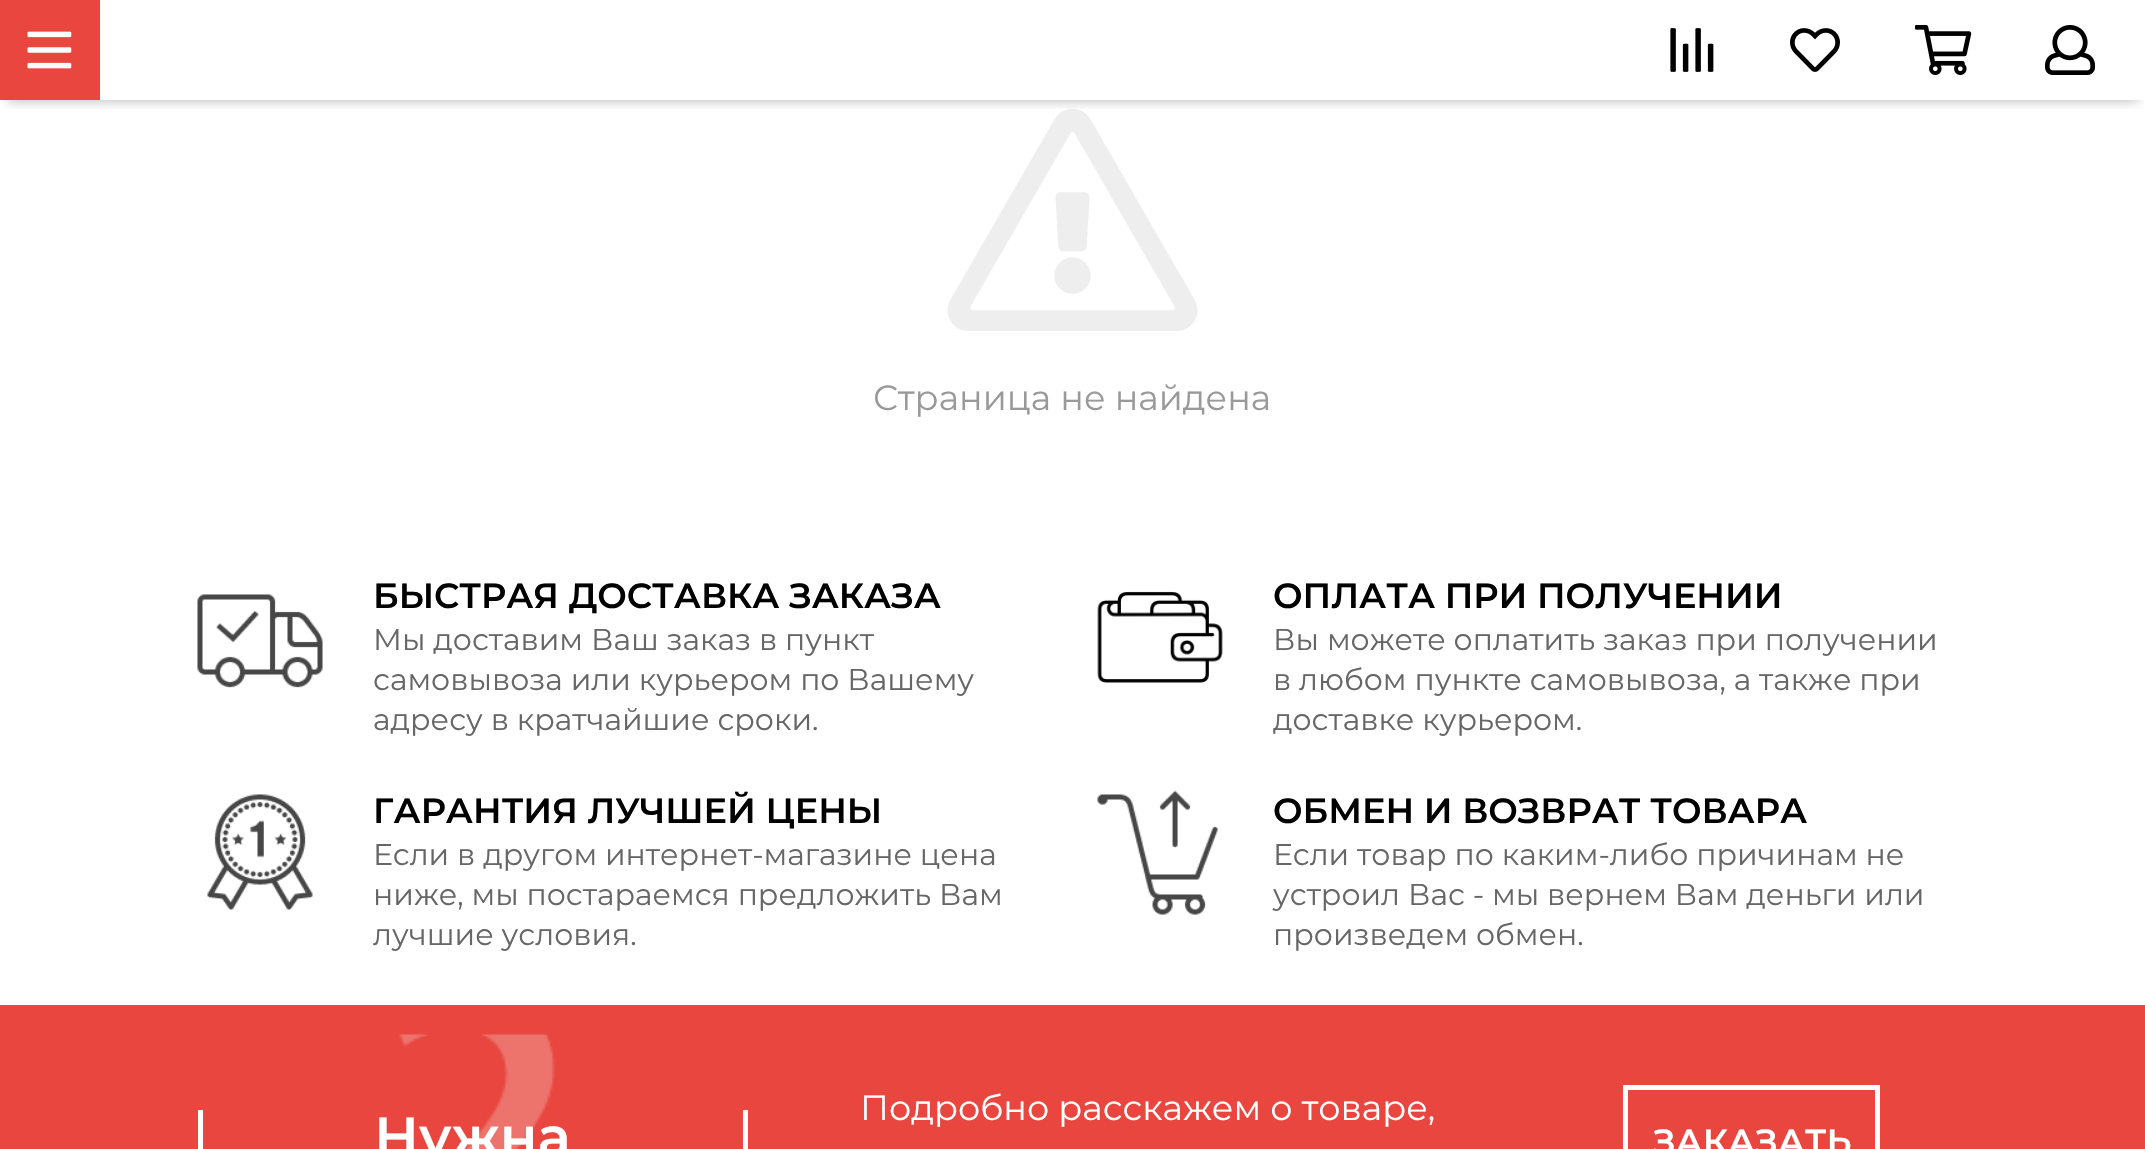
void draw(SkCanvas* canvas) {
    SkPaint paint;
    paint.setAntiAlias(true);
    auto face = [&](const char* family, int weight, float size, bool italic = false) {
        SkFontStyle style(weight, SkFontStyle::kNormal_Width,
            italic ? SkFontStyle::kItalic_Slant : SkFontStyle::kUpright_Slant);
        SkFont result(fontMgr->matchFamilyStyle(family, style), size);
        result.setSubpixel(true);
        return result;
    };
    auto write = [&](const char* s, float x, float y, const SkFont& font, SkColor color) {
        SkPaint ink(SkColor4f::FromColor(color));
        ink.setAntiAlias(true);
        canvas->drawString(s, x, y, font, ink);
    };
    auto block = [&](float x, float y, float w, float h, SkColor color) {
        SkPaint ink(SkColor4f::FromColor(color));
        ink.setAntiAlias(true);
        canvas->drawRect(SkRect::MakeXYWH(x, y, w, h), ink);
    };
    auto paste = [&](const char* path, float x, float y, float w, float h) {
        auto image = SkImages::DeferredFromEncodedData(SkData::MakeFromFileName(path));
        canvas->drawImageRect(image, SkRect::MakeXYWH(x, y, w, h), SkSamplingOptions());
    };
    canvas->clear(SK_ColorWHITE);
    paste("pic6.png", 947, 109, 251, 222);
    canvas->save();
    canvas->clipRect(SkRect::MakeXYWH(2, 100, 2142, 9));
    paint.setColor(SkColorSetARGB(77, 0, 0, 0));
    paint.setMaskFilter(SkMaskFilter::MakeBlur(kNormal_SkBlurStyle, 6));
    canvas->drawRect(SkRect::MakeXYWH(8, 15, 2130, 85), paint);
    paint.setMaskFilter(nullptr);
    canvas->restore();
    block(0, 0, 100, 100, SkColorSetRGB(232, 70, 63));
    paste("pic1.png", 27, 31, 45, 38);
    paste("pic2.png", 1670, 28, 44, 44);
    paste("pic3.png", 1790, 28, 50, 44);
    paste("pic4.png", 1915, 25, 57, 50);
    paste("pic5.png", 2045, 25, 50, 50);
    auto kFont1 = face("Montserrat", 400, 35);
    write("Страница не найдена", 873, 410, kFont1, SkColorSetRGB(153, 153, 153));
    paste("pic7.png", 197, 594, 126, 94);
    auto kFont2 = face("Montserrat", 600, 35);
    write("БЫСТРАЯ ДОСТАВКА ЗАКАЗА", 373, 608, kFont2, SK_ColorBLACK);
    auto kFont3 = face("Montserrat", 400, 30);
    write("Мы доставим Ваш заказ в пункт", 373, 650, kFont3, SkColorSetRGB(102, 102, 102));
    write("самовывоза или курьером по Вашему", 373, 690, kFont3, SkColorSetRGB(102, 102, 102));
    write("адресу в кратчайшие сроки.", 373, 730, kFont3, SkColorSetRGB(102, 102, 102));
    paste("pic8.png", 1097, 591, 126, 92);
    write("ОПЛАТА ПРИ ПОЛУЧЕНИИ", 1273, 608, kFont2, SK_ColorBLACK);
    write("Вы можете оплатить заказ при получении", 1273, 650, kFont3, SkColorSetRGB(102, 102, 102));
    write("в любом пункте самовывоза, а также при", 1273, 690, kFont3, SkColorSetRGB(102, 102, 102));
    write("доставке курьером.", 1273, 730, kFont3, SkColorSetRGB(102, 102, 102));
    paste("pic9.png", 207, 794, 106, 116);
    write("ГАРАНТИЯ ЛУЧШЕЙ ЦЕНЫ", 373, 823, kFont2, SK_ColorBLACK);
    write("Если в другом интернет-магазине цена", 373, 865, kFont3, SkColorSetRGB(102, 102, 102));
    write("ниже, мы постараемся предложить Вам", 373, 905, kFont3, SkColorSetRGB(102, 102, 102));
    write("лучшие условия.", 373, 945, kFont3, SkColorSetRGB(102, 102, 102));
    paste("pic10.png", 1097, 790, 121, 125);
    write("ОБМЕН И ВОЗВРАТ ТОВАРА", 1273, 823, kFont2, SK_ColorBLACK);
    write("Если товар по каким-либо причинам не", 1273, 865, kFont3, SkColorSetRGB(102, 102, 102));
    write("устроил Вас - мы вернем Вам деньги или", 1273, 905, kFont3, SkColorSetRGB(102, 102, 102));
    write("произведем обмен.", 1273, 945, kFont3, SkColorSetRGB(102, 102, 102));
    block(0, 1005, 2145, 144, SkColorSetRGB(232, 70, 63));
    write("Подробно расскажем о товаре,", 860, 1120, kFont1, SK_ColorWHITE);
    paste("pic11.png", 399, 1034, 156, 115);
    block(743, 1110, 5, 39, SK_ColorWHITE);
    block(198, 1110, 5, 39, SK_ColorWHITE);
    auto kFont4 = face("Montserrat", 600, 55);
    write("Нужна", 374, 1156, kFont4, SK_ColorWHITE);
    paint.setStyle(SkPaint::kStroke_Style);
    paint.setStrokeWidth(5);
    paint.setColor(SK_ColorWHITE);
    canvas->drawRect(SkRect::MakeXYWH(1625.5f, 1087.5f, 252, 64), paint);
    write("ЗАКАЗАТЬ", 1653, 1154, kFont2, SK_ColorWHITE);
}
